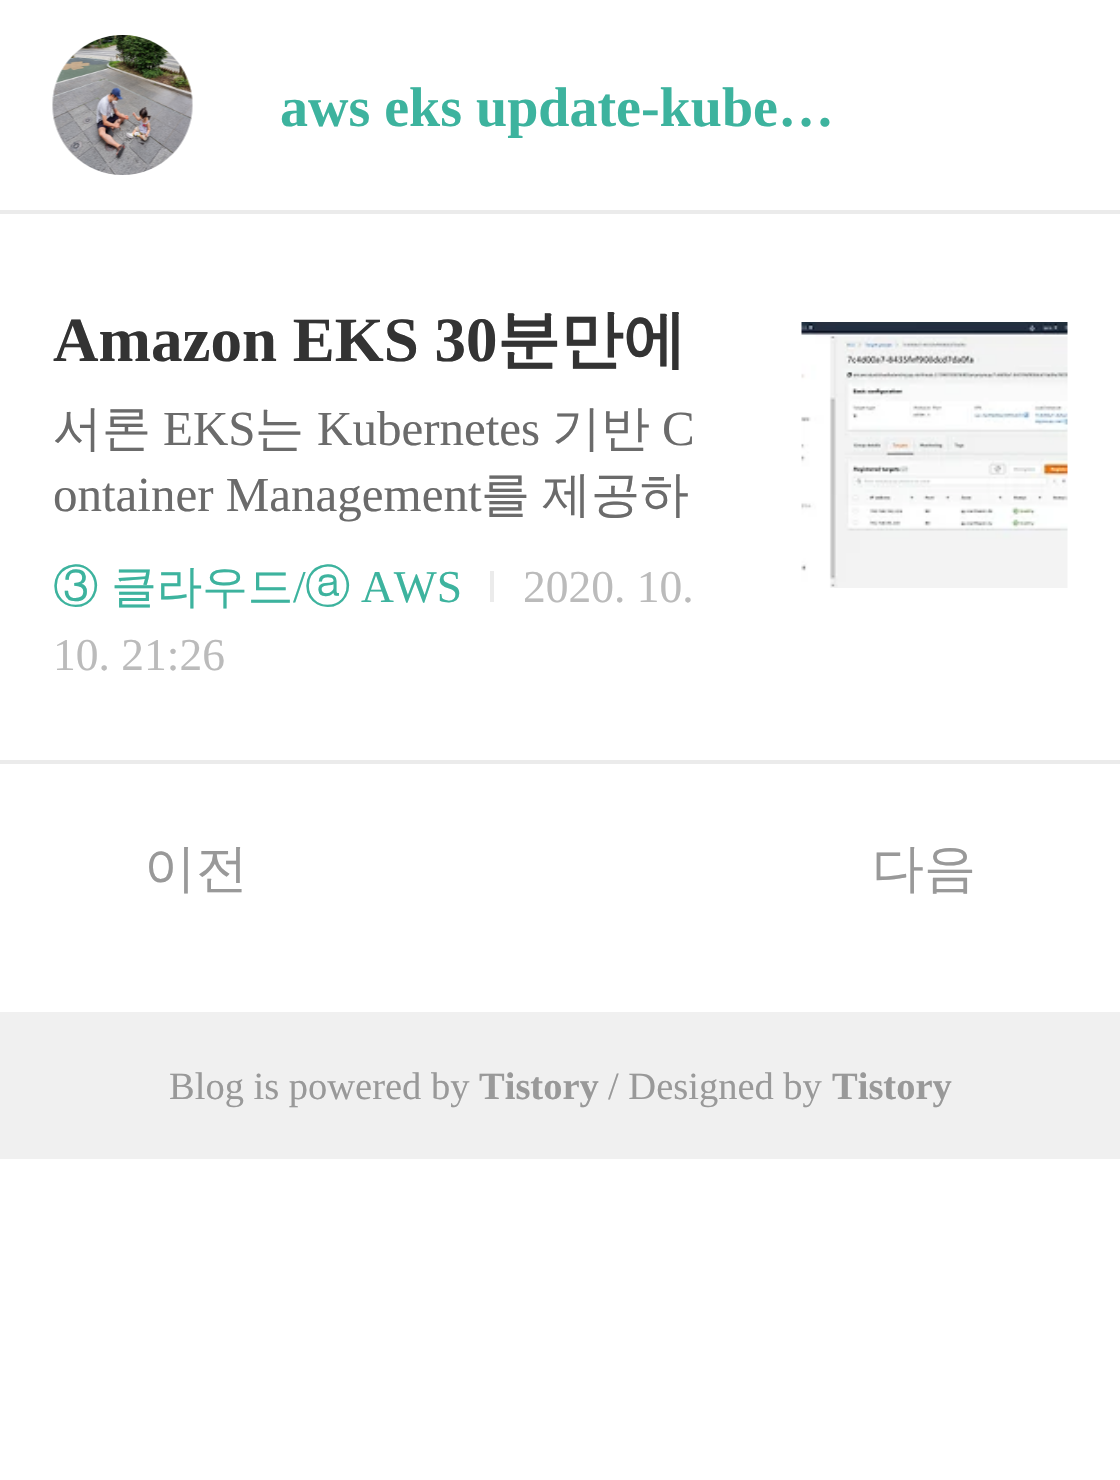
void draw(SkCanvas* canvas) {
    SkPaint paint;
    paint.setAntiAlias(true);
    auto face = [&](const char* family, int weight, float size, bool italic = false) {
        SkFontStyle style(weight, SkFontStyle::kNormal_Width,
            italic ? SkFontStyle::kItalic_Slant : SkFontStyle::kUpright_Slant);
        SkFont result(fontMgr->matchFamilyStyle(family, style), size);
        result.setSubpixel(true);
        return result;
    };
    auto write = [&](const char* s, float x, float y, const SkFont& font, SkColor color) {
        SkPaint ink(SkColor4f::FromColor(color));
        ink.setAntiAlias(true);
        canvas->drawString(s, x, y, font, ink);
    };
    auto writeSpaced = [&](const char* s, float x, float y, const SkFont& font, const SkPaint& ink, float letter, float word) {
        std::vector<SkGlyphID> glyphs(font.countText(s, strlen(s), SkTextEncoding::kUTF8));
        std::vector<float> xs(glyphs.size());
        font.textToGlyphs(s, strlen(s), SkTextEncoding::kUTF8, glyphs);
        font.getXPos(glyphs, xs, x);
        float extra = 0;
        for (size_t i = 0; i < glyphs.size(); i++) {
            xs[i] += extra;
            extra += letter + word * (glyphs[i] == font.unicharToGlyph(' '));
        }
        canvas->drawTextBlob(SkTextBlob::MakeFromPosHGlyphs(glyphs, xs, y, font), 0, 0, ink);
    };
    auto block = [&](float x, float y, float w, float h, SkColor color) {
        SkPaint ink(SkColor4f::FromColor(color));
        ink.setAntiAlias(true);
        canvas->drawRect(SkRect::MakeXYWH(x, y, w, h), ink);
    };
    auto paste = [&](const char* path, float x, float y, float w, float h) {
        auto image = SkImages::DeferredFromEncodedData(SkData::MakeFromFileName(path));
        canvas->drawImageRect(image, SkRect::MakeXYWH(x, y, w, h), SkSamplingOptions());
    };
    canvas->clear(SK_ColorWHITE);
    block(0, 210, 1120, 4, SkColorSetRGB(235, 235, 235));
    paste("pic1.png", 52, 35, 141, 140);
    auto kFont1 = face("Liberation Serif", 700, 56);
    write("aws eks update-kube…", 280, 126, kFont1, SkColorSetRGB(61, 179, 158));
    block(0, 760, 1120, 4, SkColorSetRGB(235, 235, 235));
    auto kFont2 = face("Liberation Serif", 700, 63);
    write("Amazon EKS 30", 53, 361, kFont2, SkColorSetRGB(51, 51, 51));
    auto kFont3 = face("WenQuanYi Zen Hei", 700, 63);
    write("분만에", 497, 361, kFont3, SkColorSetRGB(51, 51, 51));
    auto kFont4 = face("WenQuanYi Zen Hei", 500, 49);
    write("서론", 53, 445, kFont4, SkColorSetRGB(107, 107, 107));
    auto kFont5 = face("Liberation Serif", 400, 49);
    write("EKS", 163, 445, kFont5, SkColorSetRGB(107, 107, 107));
    write("는", 255, 445, kFont4, SkColorSetRGB(107, 107, 107));
    write("Kubernetes", 317, 445, kFont5, SkColorSetRGB(107, 107, 107));
    write("기반", 552, 445, kFont4, SkColorSetRGB(107, 107, 107));
    write("C", 662, 445, kFont5, SkColorSetRGB(107, 107, 107));
    write("ontainer Management", 53, 511, kFont5, SkColorSetRGB(107, 107, 107));
    write("를", 481, 511, kFont4, SkColorSetRGB(107, 107, 107));
    write("제공하", 542, 511, kFont4, SkColorSetRGB(107, 107, 107));
    paste("pic2.png", 801, 322, 267, 266);
    auto kFont6 = face("WenQuanYi Zen Hei", 500, 45.5f);
    paint.setColor(SkColorSetRGB(61, 179, 158));
    writeSpaced("③ 클라우드", 53, 602, kFont6, paint, 0, -1);
    auto kFont7 = face("Liberation Serif", 400, 45.5f);
    write("/", 293, 602, kFont7, SkColorSetRGB(61, 179, 158));
    write("ⓐ", 305, 602, kFont6, SkColorSetRGB(61, 179, 158));
    write("AWS", 361, 602, kFont7, SkColorSetRGB(61, 179, 158));
    block(490, 571, 4, 31, SkColorSetRGB(235, 235, 235));
    write("2020. 10.", 523, 602, kFont7, SkColorSetRGB(187, 187, 187));
    write("10. 21:26", 53, 670, kFont7, SkColorSetRGB(187, 187, 187));
    auto kFont8 = face("WenQuanYi Zen Hei", 500, 52);
    write("이전", 144, 886, kFont8, SkColorSetRGB(153, 153, 153));
    write("다음", 872, 886, kFont8, SkColorSetRGB(153, 153, 153));
    block(0, 1012, 1120, 147, SkColorSetRGB(240, 240, 240));
    auto kFont9 = face("Liberation Serif", 400, 38.5f);
    write("Blog is powered by", 169, 1099, kFont9, SkColorSetRGB(153, 153, 153));
    auto kFont10 = face("Liberation Serif", 700, 38.5f);
    write("Tistory", 479, 1099, kFont10, SkColorSetRGB(153, 153, 153));
    write("/ Designed by", 608, 1099, kFont9, SkColorSetRGB(153, 153, 153));
    write("Tistory", 832, 1099, kFont10, SkColorSetRGB(153, 153, 153));
}
